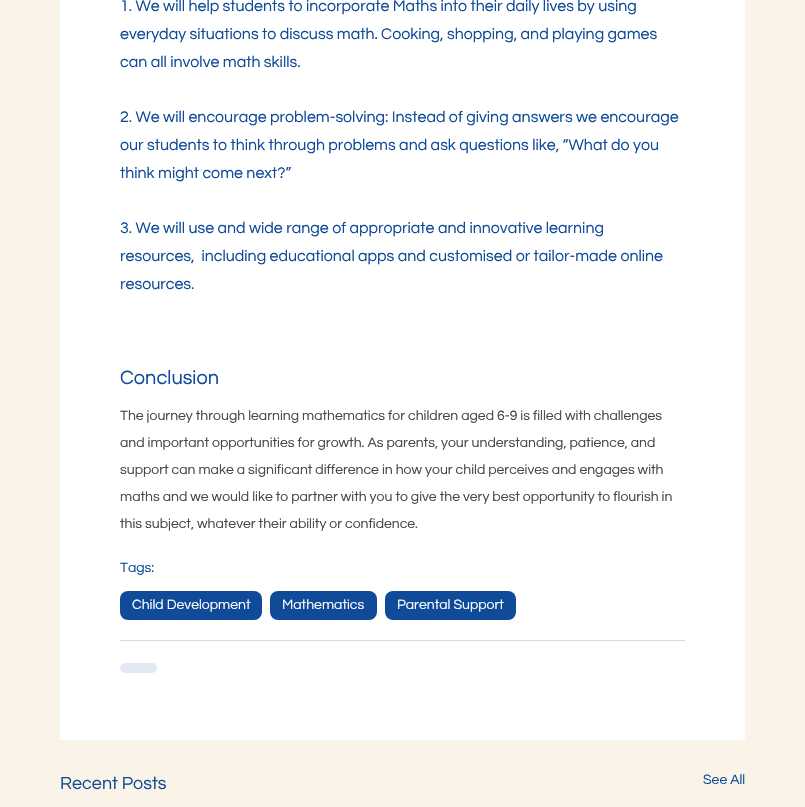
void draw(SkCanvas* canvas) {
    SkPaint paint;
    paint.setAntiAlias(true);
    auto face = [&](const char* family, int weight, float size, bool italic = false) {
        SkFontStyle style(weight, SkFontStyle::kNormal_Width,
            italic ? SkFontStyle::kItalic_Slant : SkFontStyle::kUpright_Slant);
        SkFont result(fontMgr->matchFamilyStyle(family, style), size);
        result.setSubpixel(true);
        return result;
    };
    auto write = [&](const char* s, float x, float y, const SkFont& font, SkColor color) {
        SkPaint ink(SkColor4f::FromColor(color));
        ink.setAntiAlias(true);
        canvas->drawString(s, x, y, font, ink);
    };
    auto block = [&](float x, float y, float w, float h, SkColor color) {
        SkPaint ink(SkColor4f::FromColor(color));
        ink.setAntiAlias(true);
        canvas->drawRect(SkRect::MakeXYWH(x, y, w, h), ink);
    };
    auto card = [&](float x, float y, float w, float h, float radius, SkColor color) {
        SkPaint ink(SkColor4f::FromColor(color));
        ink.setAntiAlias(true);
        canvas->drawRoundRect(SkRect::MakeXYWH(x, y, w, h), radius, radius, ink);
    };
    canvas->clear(SkColorSetRGB(250, 244, 232));
    block(60, 0, 685, 740, SK_ColorWHITE);
    auto kFont1 = face("Questrial", 400, 16);
    write("1. We will help students to incorporate Maths into their daily lives by using", 120, 11, kFont1, SkColorSetRGB(15, 75, 152));
    write("everyday situations to discuss math. Cooking, shopping, and playing games", 120, 39, kFont1, SkColorSetRGB(15, 75, 152));
    write("can all involve math skills.", 120, 67, kFont1, SkColorSetRGB(15, 75, 152));
    write("2. We will encourage problem-solving: Instead of giving answers we encourage", 120, 122, kFont1, SkColorSetRGB(15, 75, 152));
    write("our students to think through problems and ask questions like, “What do you", 120, 150, kFont1, SkColorSetRGB(15, 75, 152));
    write("think might come next?”", 120, 178, kFont1, SkColorSetRGB(15, 75, 152));
    write("3. We will use and wide range of appropriate and innovative learning", 120, 233, kFont1, SkColorSetRGB(15, 75, 152));
    write("resources,  including educational apps and customised or tailor-made online", 120, 261, kFont1, SkColorSetRGB(15, 75, 152));
    write("resources.", 120, 289, kFont1, SkColorSetRGB(15, 75, 152));
    auto kFont2 = face("Questrial", 400, 20);
    write("Conclusion", 120, 384, kFont2, SkColorSetRGB(15, 75, 152));
    auto kFont3 = face("Questrial", 400, 14);
    write("The journey through learning mathematics for children aged 6-9 is filled with challenges", 120, 420, kFont3, SkColorSetRGB(71, 71, 71));
    write("and important opportunities for growth. As parents, your understanding, patience, and", 120, 447, kFont3, SkColorSetRGB(71, 71, 71));
    write("support can make a significant difference in how your child perceives and engages with", 120, 474, kFont3, SkColorSetRGB(71, 71, 71));
    write("maths and we would like to partner with you to give the very best opportunity to flourish in", 120, 501, kFont3, SkColorSetRGB(71, 71, 71));
    write("this subject, whatever their ability or confidence.", 120, 528, kFont3, SkColorSetRGB(71, 71, 71));
    write("Tags:", 120, 572, kFont3, SkColorSetRGB(15, 75, 152));
    card(120, 591, 142, 29, 8, SkColorSetRGB(15, 75, 152));
    write("Child Development", 132, 609, kFont3, SK_ColorWHITE);
    card(270, 591, 107, 29, 8, SkColorSetRGB(15, 75, 152));
    write("Mathematics", 282, 609, kFont3, SK_ColorWHITE);
    card(385, 591, 131, 29, 8, SkColorSetRGB(15, 75, 152));
    write("Parental Support", 397, 609, kFont3, SK_ColorWHITE);
    block(120, 640, 565, 1, SkColorSetRGB(207, 219, 234));
    card(120, 663, 37, 10, 5, SkColorSetRGB(226, 233, 243));
    auto kFont4 = face("Questrial", 400, 18);
    write("Recent Posts", 60, 789, kFont4, SkColorSetRGB(15, 75, 152));
    write("See All", 703, 784, kFont3, SkColorSetRGB(15, 75, 152));
}
